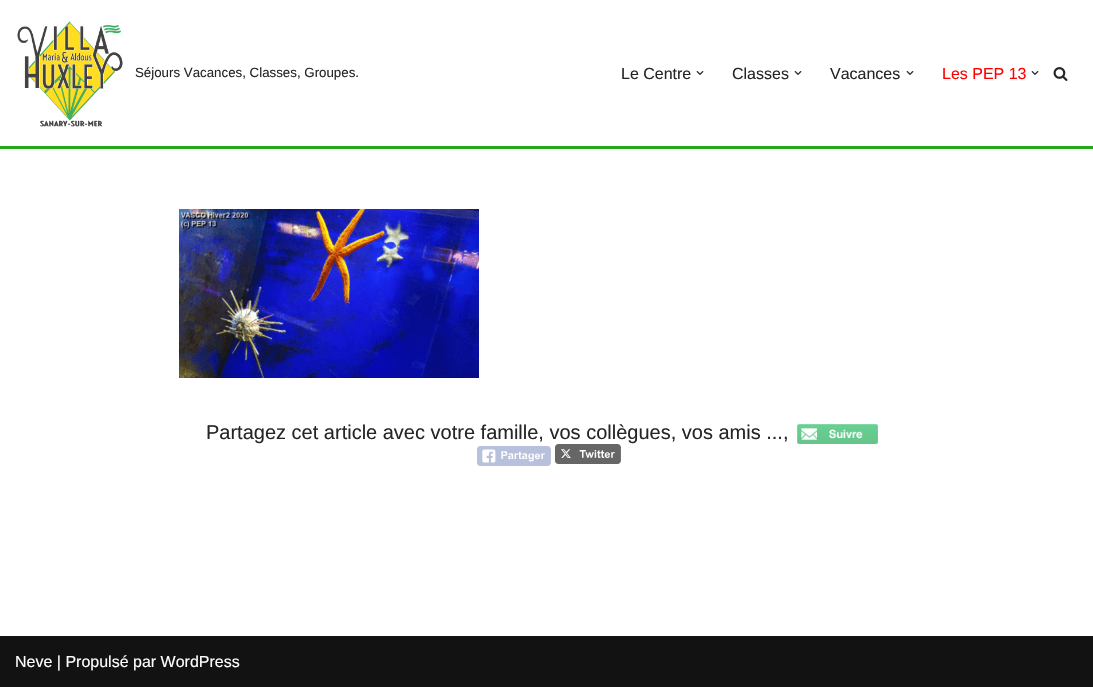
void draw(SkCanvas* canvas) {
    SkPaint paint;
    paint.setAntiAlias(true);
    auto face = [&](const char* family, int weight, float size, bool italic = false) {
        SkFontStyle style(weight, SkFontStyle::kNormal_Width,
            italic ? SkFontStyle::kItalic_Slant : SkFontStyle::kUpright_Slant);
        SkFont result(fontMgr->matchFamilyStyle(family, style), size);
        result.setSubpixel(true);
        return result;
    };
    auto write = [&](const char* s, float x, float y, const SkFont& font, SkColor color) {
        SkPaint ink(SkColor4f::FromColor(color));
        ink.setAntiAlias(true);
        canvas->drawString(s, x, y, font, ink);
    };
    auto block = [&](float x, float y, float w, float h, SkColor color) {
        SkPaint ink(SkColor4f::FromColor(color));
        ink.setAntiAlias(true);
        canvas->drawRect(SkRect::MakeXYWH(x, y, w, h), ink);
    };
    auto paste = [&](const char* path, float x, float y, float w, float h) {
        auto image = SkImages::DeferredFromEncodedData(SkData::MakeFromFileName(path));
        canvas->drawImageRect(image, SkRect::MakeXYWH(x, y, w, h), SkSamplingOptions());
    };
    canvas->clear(SK_ColorWHITE);
    block(0, 146, 1093, 3, SkColorSetRGB(34, 170, 27));
    paste("pic1.png", 17, 21, 106, 106);
    auto kFont1 = face("Liberation Sans", 400, 13.3f);
    write("Séjours Vacances, Classes, Groupes.", 135, 77, kFont1, SkColorSetRGB(39, 38, 38));
    auto kFont2 = face("Liberation Sans", 400, 16);
    write("Le Centre", 621, 79, kFont2, SkColorSetRGB(39, 38, 38));
    paste("pic2.png", 696, 71, 8, 4);
    write("Classes", 732, 79, kFont2, SkColorSetRGB(39, 38, 38));
    paste("pic2.png", 794, 71, 8, 4);
    write("Vacances", 830, 79, kFont2, SkColorSetRGB(39, 38, 38));
    paste("pic2.png", 906, 71, 8, 4);
    write("Les PEP 13", 942, 79, kFont2, SkColorSetRGB(255, 0, 0));
    paste("pic2.png", 1031, 71, 8, 4);
    paste("pic3.png", 1053, 67, 15, 14);
    paste("pic4.png", 179, 209, 300, 169);
    auto kFont3 = face("Liberation Sans", 400, 20);
    write("Partagez cet article avec votre famille, vos collègues, vos amis ...,", 206, 439, kFont3, SkColorSetRGB(39, 38, 38));
    paste("pic5.png", 797, 424, 81, 20);
    paste("pic6.png", 477, 446, 74, 20);
    paste("pic7.png", 555, 444, 66, 20);
    block(0, 636, 1093, 51, SkColorSetRGB(18, 18, 18));
    write("Neve | Propulsé par WordPress", 15, 667, kFont2, SK_ColorWHITE);
}
